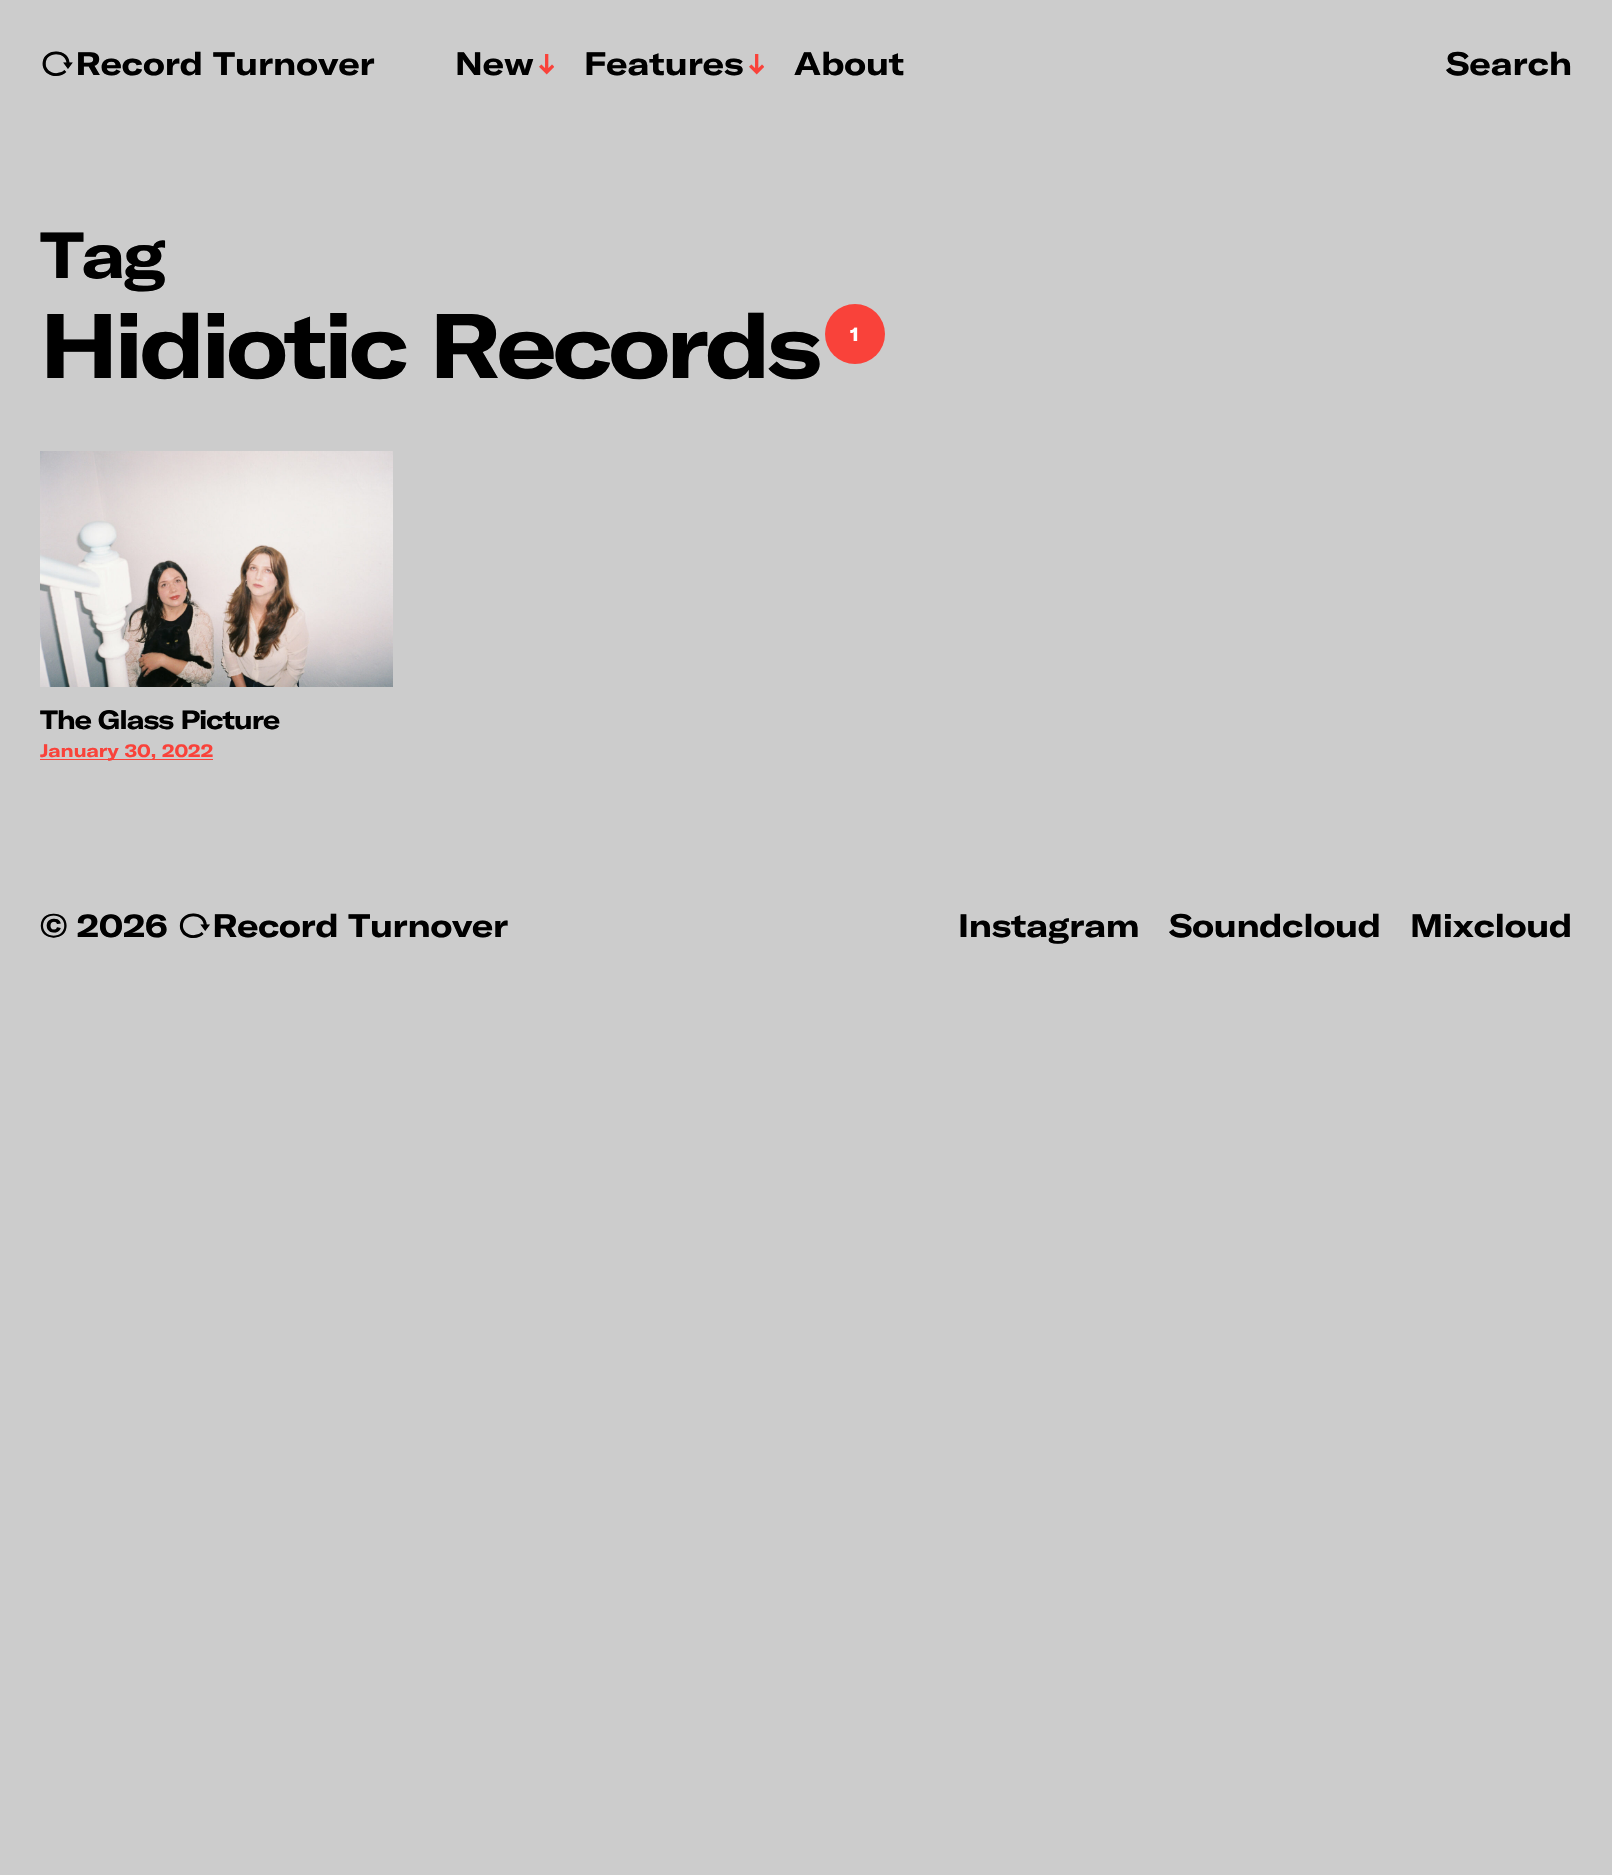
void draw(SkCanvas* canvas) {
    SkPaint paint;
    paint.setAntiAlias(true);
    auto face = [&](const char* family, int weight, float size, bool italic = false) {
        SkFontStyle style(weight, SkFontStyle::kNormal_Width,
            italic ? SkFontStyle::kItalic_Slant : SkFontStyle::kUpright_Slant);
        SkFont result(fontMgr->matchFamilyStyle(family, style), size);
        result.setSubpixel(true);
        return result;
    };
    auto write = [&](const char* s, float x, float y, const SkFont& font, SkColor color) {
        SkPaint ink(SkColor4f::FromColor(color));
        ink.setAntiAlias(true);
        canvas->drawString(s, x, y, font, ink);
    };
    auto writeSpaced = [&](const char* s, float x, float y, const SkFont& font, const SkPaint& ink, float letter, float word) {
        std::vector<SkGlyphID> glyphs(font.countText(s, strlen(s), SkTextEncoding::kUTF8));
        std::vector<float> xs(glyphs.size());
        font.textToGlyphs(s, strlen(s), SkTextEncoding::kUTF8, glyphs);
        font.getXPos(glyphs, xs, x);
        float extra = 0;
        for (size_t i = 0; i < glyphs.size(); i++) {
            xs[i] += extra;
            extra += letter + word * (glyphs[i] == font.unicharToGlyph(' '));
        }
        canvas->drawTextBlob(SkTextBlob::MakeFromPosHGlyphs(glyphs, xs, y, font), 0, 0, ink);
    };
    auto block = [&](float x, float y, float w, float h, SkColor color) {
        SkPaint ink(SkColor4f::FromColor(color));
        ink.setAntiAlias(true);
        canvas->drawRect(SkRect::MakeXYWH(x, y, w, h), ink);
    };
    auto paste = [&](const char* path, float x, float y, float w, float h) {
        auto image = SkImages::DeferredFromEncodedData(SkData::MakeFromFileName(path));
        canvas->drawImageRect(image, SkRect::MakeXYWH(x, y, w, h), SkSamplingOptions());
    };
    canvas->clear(SkColorSetRGB(204, 204, 204));
    auto kFont1 = face("GT America", 700, 32);
    write("↻Record Turnover", 40, 75, kFont1, SK_ColorBLACK);
    write("New", 455, 75, kFont1, SK_ColorBLACK);
    paste("pic1.png", 539, 54, 15, 21);
    write("Features", 584, 75, kFont1, SK_ColorBLACK);
    paste("pic1.png", 749, 54, 15, 21);
    write("About", 794, 75, kFont1, SK_ColorBLACK);
    write("Search", 1446, 75, kFont1, SK_ColorBLACK);
    auto kFont2 = face("GT America", 700, 64);
    paint.setColor(SK_ColorBLACK);
    writeSpaced("Tag", 40, 278, kFont2, paint, -2.5f, 0);
    auto kFont3 = face("GT America", 700, 90);
    writeSpaced("Hidiotic Records", 40, 378, kFont3, paint, -3.6f, 0);
    paint.setColor(SkColorSetRGB(249, 66, 58));
    canvas->drawCircle(855, 334, 30, paint);
    auto kFont4 = face("GT America", 700, 19);
    write("1", 850, 341, kFont4, SK_ColorWHITE);
    paste("pic2.png", 40, 451, 353, 236);
    auto kFont5 = face("GT America", 700, 26);
    paint.setColor(SK_ColorBLACK);
    writeSpaced("The Glass Picture", 40, 729, kFont5, paint, -1, 0);
    block(40, 759, 173, 1, SkColorSetRGB(249, 66, 58));
    auto kFont6 = face("GT America", 700, 18);
    write("January 30, 2022", 40, 757, kFont6, SkColorSetRGB(249, 66, 58));
    writeSpaced("© 2026 ↻Record Turnover", 40, 937, kFont1, paint, -0.25f, 0);
    writeSpaced("Instagram", 958, 937, kFont1, paint, -0.25f, 0);
    writeSpaced("Soundcloud", 1169, 937, kFont1, paint, -0.25f, 0);
    writeSpaced("Mixcloud", 1410, 937, kFont1, paint, -0.25f, 0);
}
